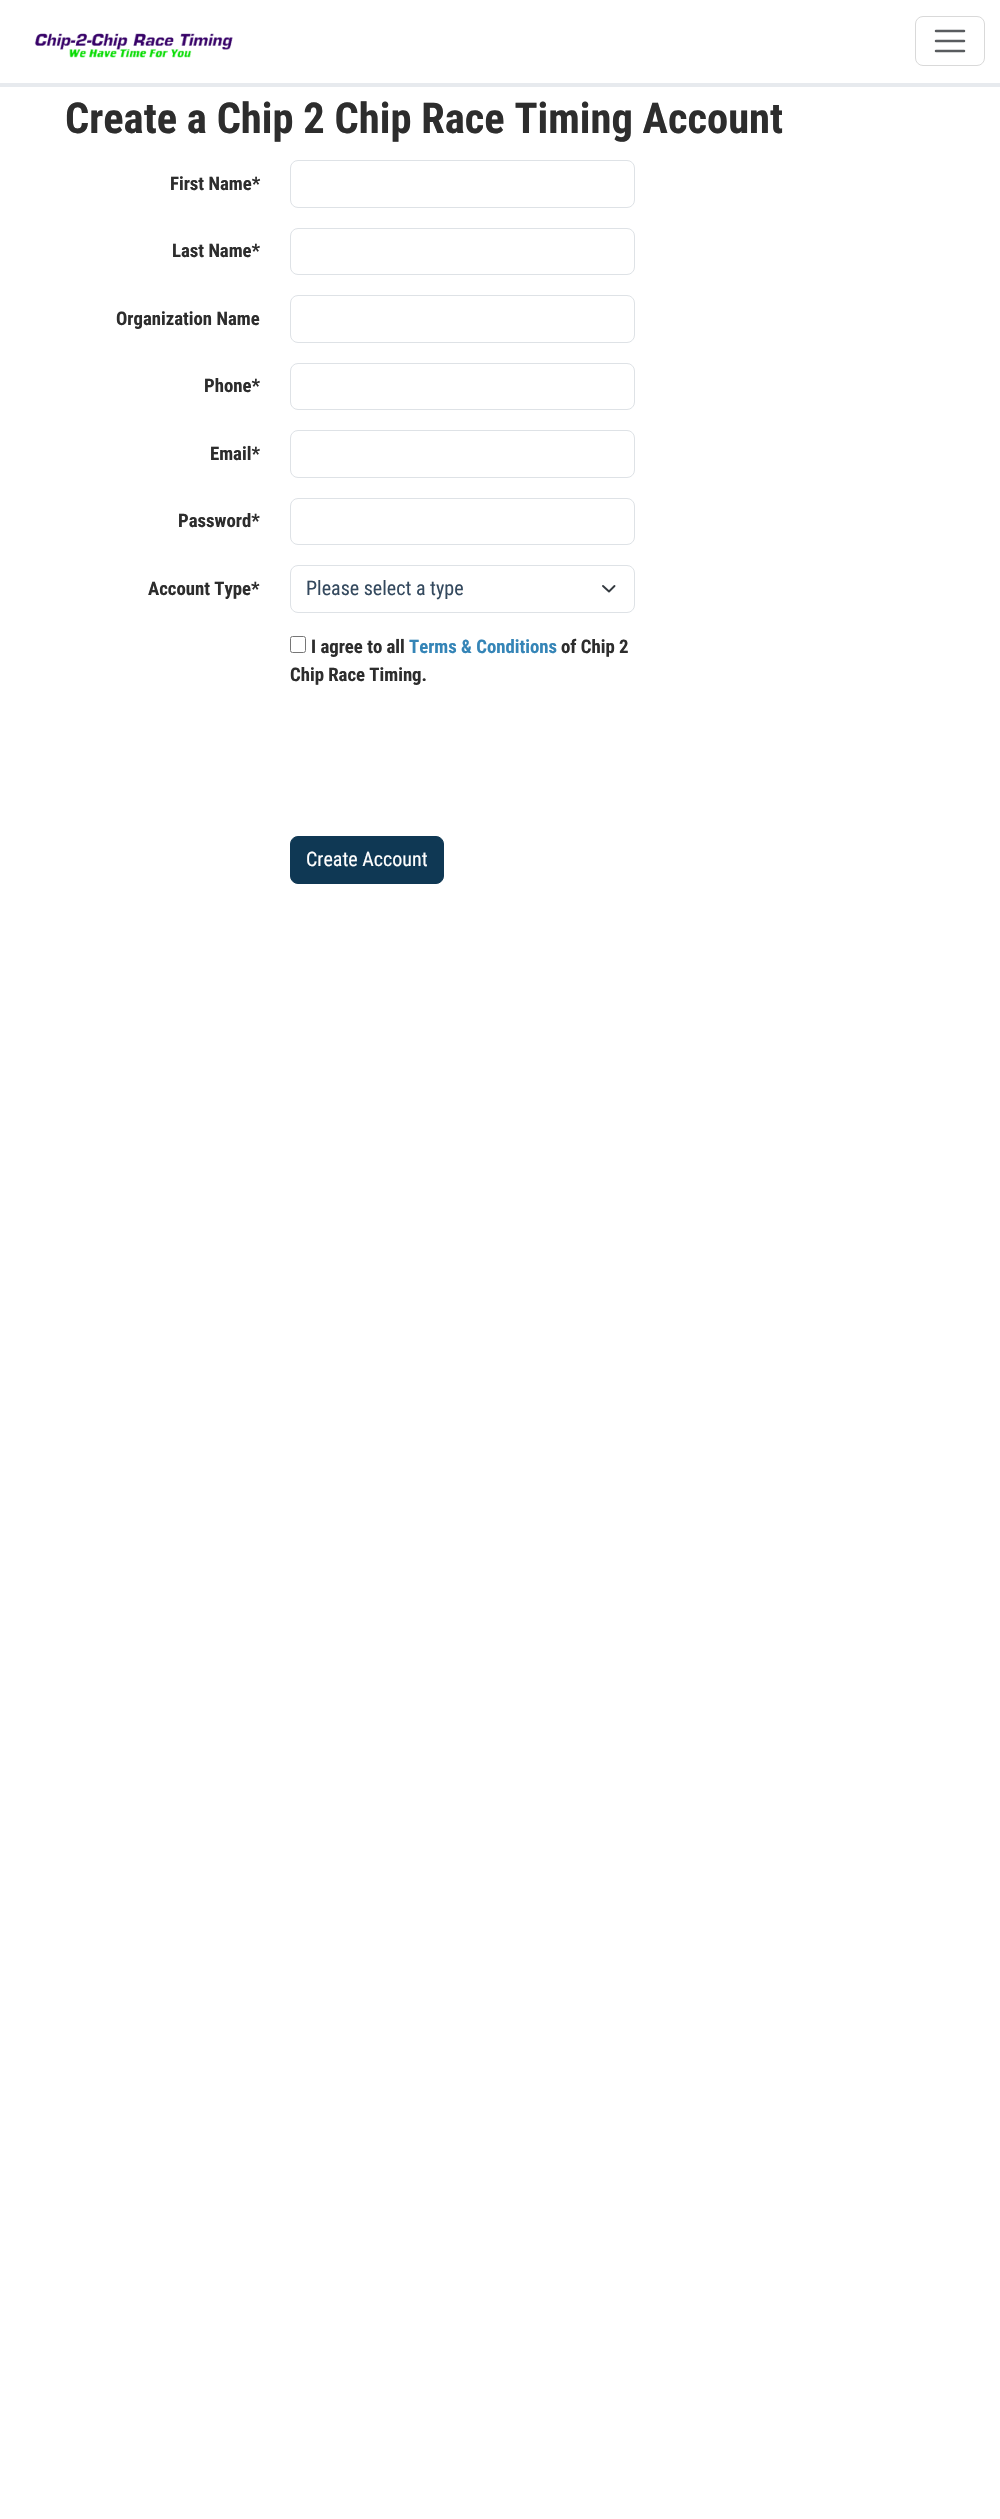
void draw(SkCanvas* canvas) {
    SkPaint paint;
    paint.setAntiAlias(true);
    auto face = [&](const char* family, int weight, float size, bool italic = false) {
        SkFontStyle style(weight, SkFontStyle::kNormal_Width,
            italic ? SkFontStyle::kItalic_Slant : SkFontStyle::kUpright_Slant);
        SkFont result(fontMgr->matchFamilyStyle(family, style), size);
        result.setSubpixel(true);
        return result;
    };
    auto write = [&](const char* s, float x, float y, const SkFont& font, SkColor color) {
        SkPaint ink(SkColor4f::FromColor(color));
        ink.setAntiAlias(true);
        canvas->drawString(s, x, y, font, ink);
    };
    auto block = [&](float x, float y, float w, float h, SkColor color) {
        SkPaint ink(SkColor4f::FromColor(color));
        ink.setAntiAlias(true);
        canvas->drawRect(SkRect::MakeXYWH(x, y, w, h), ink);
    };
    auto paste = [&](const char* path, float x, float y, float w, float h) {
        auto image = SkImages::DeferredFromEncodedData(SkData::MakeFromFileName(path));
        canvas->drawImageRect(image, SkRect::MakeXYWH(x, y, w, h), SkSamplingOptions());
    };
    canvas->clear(SK_ColorWHITE);
    block(0, 83, 1000, 4, SkColorSetRGB(231, 234, 238));
    paste("pic1.png", 34, 33, 199, 25);
    paint.setStyle(SkPaint::kStroke_Style);
    paint.setStrokeWidth(1);
    paint.setColor(SkColorSetRGB(217, 217, 217));
    canvas->drawRoundRect(SkRect::MakeXYWH(915.5f, 16.5f, 69, 49), 7.5f, 7.5f, paint);
    paint.setStrokeWidth(2.5f);
    paint.setStrokeCap(SkPaint::kRound_Cap);
    paint.setColor(SkColorSetRGB(89, 92, 95));
    canvas->drawPath(SkPathBuilder().moveTo(936, 31).lineTo(964, 31).moveTo(936, 41).lineTo(964, 41).moveTo(936, 51).lineTo(964, 51).detach(), paint);
    auto kFont1 = face("Roboto Condensed", 700, 42.5f);
    write("Create a Chip 2 Chip Race Timing Account", 65, 133, kFont1, SkColorSetRGB(45, 45, 45));
    auto kFont2 = face("Roboto Condensed", 700, 18.75f);
    write("First Name*", 170, 190, kFont2, SkColorSetRGB(45, 45, 45));
    paint.setStrokeWidth(1);
    paint.setStrokeCap(SkPaint::kButt_Cap);
    paint.setColor(SkColorSetRGB(222, 226, 230));
    canvas->drawRoundRect(SkRect::MakeXYWH(290.5f, 160.5f, 344, 47), 7.5f, 7.5f, paint);
    write("Last Name*", 172, 257, kFont2, SkColorSetRGB(45, 45, 45));
    canvas->drawRoundRect(SkRect::MakeXYWH(290.5f, 228.5f, 344, 46), 7.5f, 7.5f, paint);
    write("Organization Name", 116, 325, kFont2, SkColorSetRGB(45, 45, 45));
    canvas->drawRoundRect(SkRect::MakeXYWH(290.5f, 295.5f, 344, 47), 7.5f, 7.5f, paint);
    write("Phone*", 204, 392, kFont2, SkColorSetRGB(45, 45, 45));
    canvas->drawRoundRect(SkRect::MakeXYWH(290.5f, 363.5f, 344, 46), 7.5f, 7.5f, paint);
    write("Email*", 210, 460, kFont2, SkColorSetRGB(45, 45, 45));
    canvas->drawRoundRect(SkRect::MakeXYWH(290.5f, 430.5f, 344, 47), 7.5f, 7.5f, paint);
    write("Password*", 178, 527, kFont2, SkColorSetRGB(45, 45, 45));
    canvas->drawRoundRect(SkRect::MakeXYWH(290.5f, 498.5f, 344, 46), 7.5f, 7.5f, paint);
    write("Account Type*", 148, 595, kFont2, SkColorSetRGB(45, 45, 45));
    paint.setStrokeWidth(1.9f);
    paint.setStrokeCap(SkPaint::kRound_Cap);
    paint.setStrokeJoin(SkPaint::kRound_Join);
    paint.setColor(SkColorSetRGB(52, 58, 64));
    canvas->drawPath(SkPathBuilder().moveTo(603, 586).lineTo(609, 591.5f).lineTo(614.5f, 586).detach(), paint);
    paint.setStrokeWidth(1);
    paint.setStrokeCap(SkPaint::kButt_Cap);
    paint.setStrokeJoin(SkPaint::kMiter_Join);
    paint.setColor(SkColorSetRGB(222, 226, 230));
    canvas->drawRoundRect(SkRect::MakeXYWH(290.5f, 565.5f, 344, 47), 7.5f, 7.5f, paint);
    auto kFont3 = face("Roboto Condensed", 400, 20);
    write("Please select a type", 306, 595, kFont3, SkColorSetRGB(52, 73, 94));
    paint.setColor(SkColorSetRGB(118, 118, 118));
    canvas->drawRoundRect(SkRect::MakeXYWH(290.5f, 636.5f, 15, 16), 2, 2, paint);
    write("I agree to all", 311, 653, kFont2, SkColorSetRGB(45, 45, 45));
    write("Terms & Conditions", 409, 653, kFont2, SkColorSetRGB(53, 133, 183));
    write("of Chip 2", 561, 653, kFont2, SkColorSetRGB(45, 45, 45));
    write("Chip Race Timing.", 290, 681, kFont2, SkColorSetRGB(45, 45, 45));
    paint.setStyle(SkPaint::kFill_Style);
    paint.setColor(SkColorSetRGB(15, 56, 84));
    canvas->drawRoundRect(SkRect::MakeXYWH(290.5f, 836.5f, 153, 47), 7.5f, 7.5f, paint);
    paint.setStyle(SkPaint::kStroke_Style);
    canvas->drawRoundRect(SkRect::MakeXYWH(290.5f, 836.5f, 153, 47), 7.5f, 7.5f, paint);
    write("Create Account", 306, 866, kFont3, SK_ColorWHITE);
}
